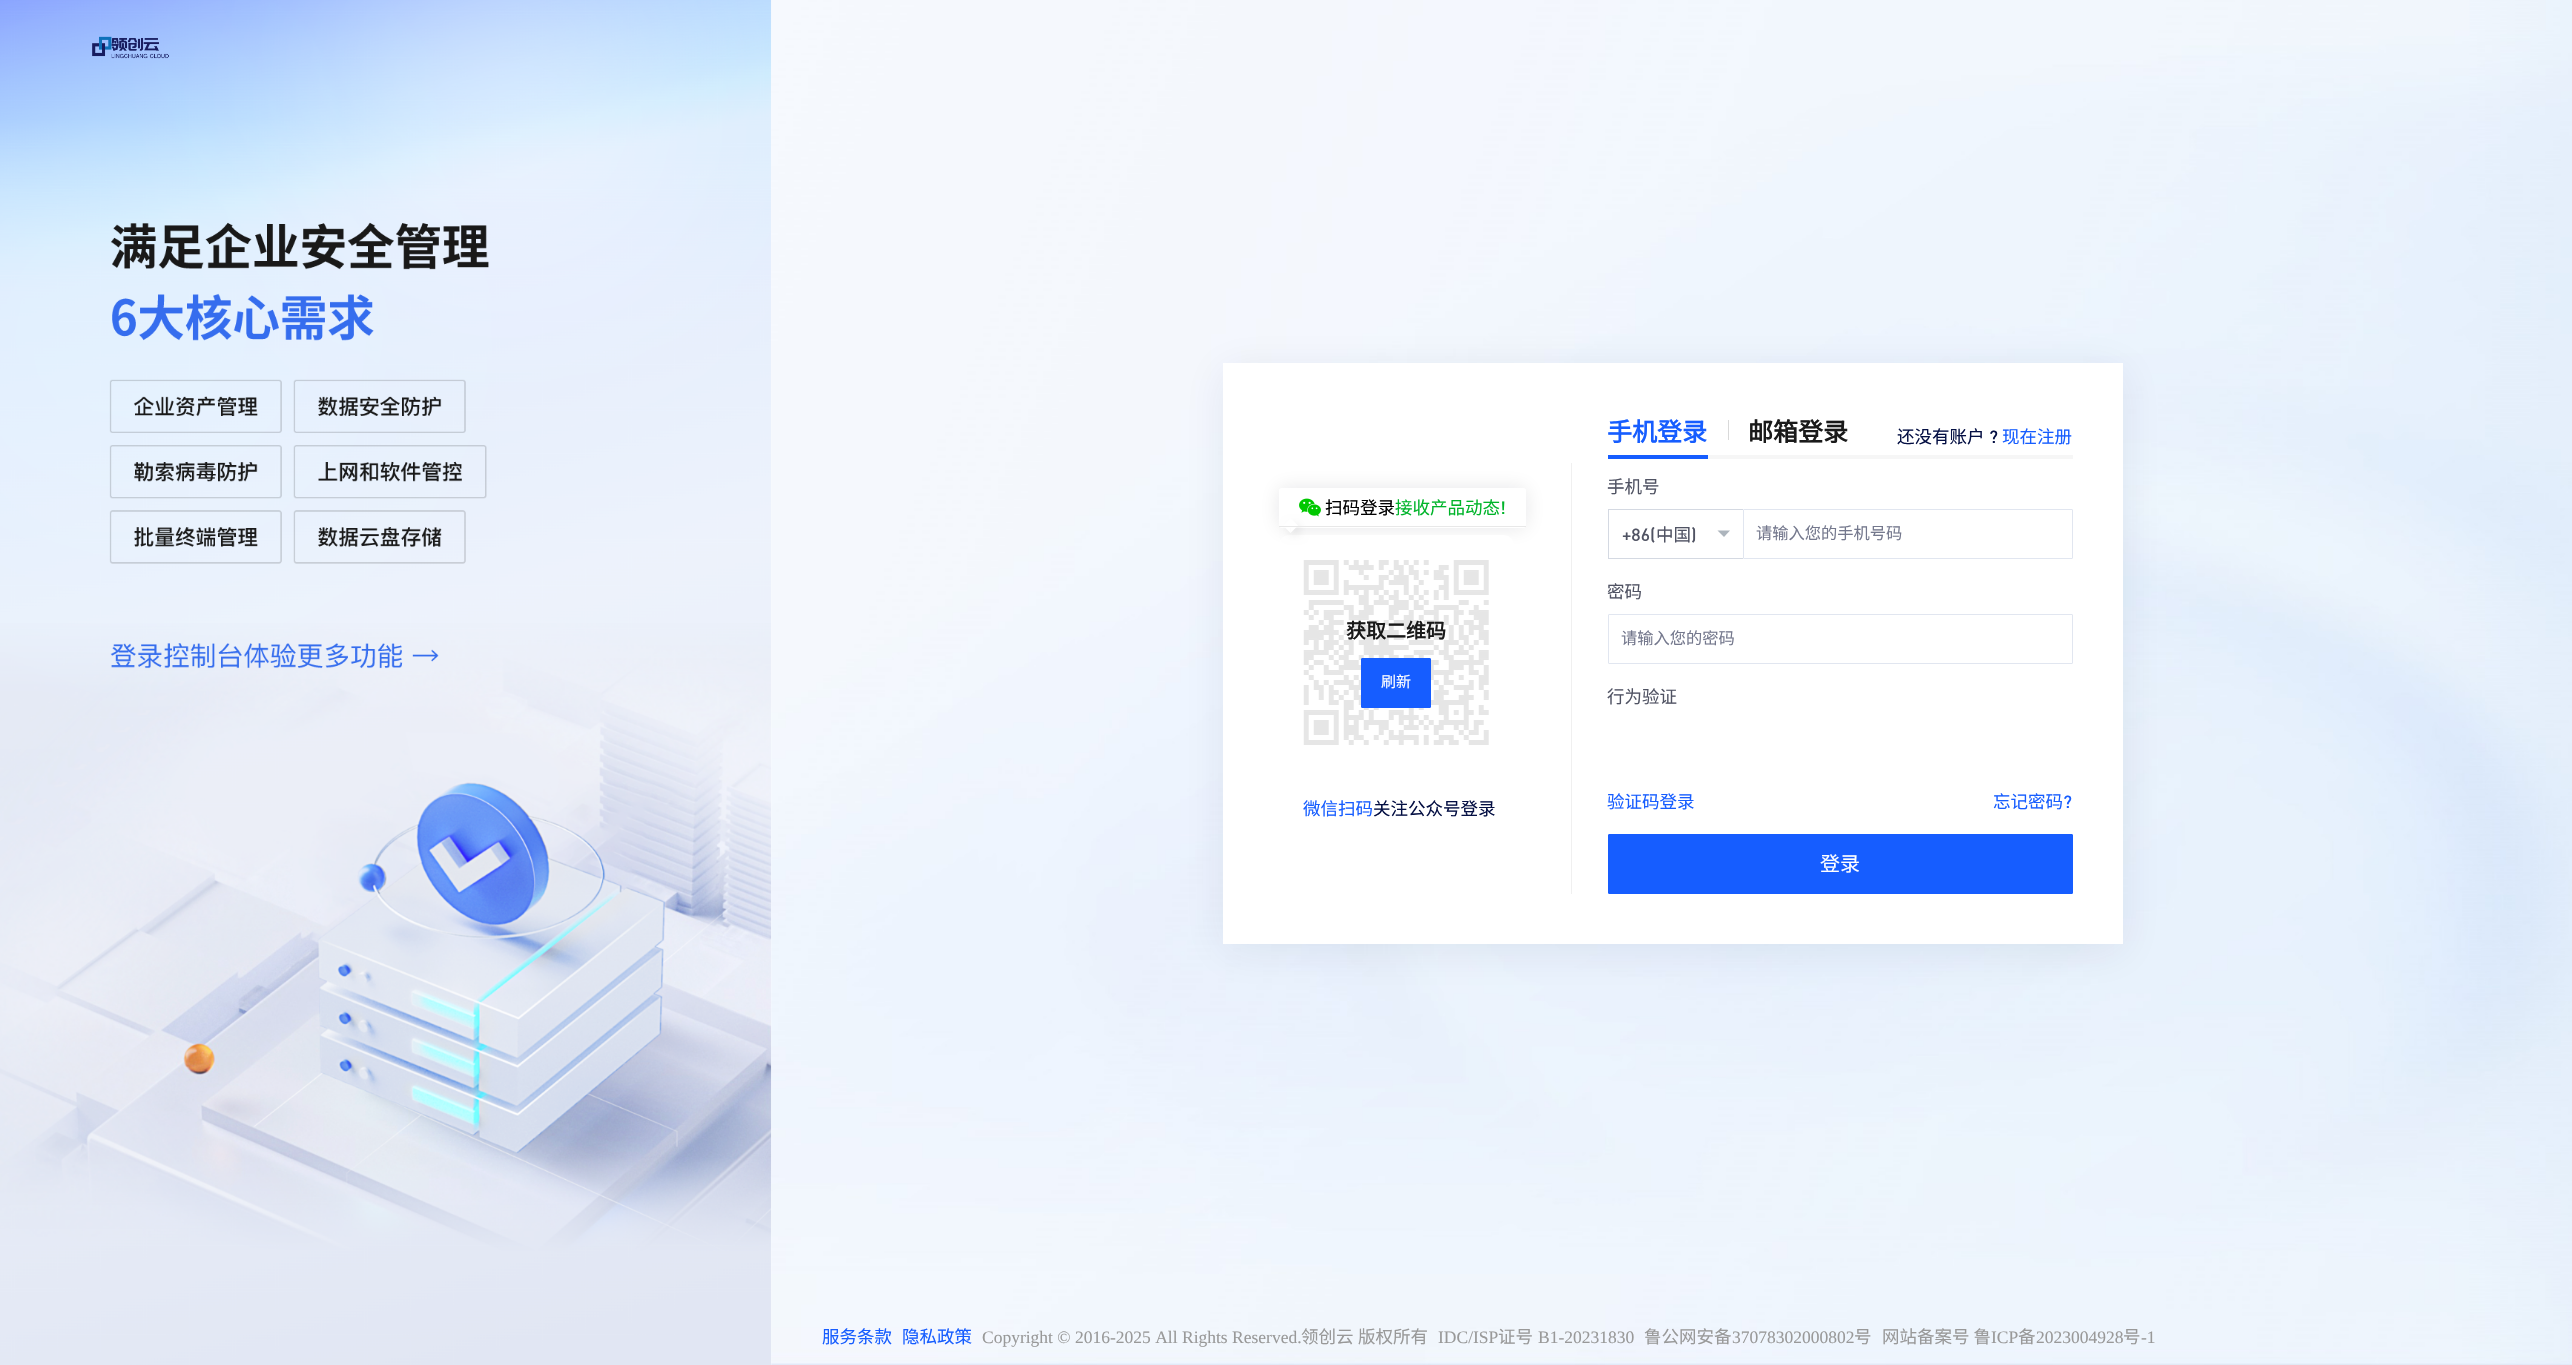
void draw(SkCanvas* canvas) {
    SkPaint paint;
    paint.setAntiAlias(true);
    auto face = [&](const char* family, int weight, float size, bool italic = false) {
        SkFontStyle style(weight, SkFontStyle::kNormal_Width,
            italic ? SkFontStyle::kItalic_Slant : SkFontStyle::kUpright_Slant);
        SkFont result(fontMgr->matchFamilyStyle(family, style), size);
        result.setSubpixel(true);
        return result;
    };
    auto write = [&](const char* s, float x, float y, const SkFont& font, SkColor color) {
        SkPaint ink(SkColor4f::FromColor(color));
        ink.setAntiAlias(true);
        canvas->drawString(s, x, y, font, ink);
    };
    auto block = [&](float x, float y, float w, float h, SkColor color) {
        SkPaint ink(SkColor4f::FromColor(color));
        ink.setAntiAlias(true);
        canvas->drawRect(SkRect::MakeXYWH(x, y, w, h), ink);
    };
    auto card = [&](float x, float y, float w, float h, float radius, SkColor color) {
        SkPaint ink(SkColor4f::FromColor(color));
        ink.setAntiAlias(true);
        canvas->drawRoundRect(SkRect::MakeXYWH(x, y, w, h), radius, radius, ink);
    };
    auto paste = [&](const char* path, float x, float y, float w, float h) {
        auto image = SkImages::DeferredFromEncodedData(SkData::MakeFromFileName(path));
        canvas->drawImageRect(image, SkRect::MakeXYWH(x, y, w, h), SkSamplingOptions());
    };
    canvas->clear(SK_ColorWHITE);
    paste("pic3.png", 771, 0, 1801, 1365);
    paste("pic1.png", 0, 0, 772, 1365);
    paste("pic2.png", 92, 36, 77, 23);
    paint.setColor(SkColorSetARGB(20, 15, 32, 71));
    paint.setMaskFilter(SkMaskFilter::MakeBlur(kNormal_SkBlurStyle, 20));
    canvas->drawRect(SkRect::MakeXYWH(1223, 370, 900, 581), paint);
    paint.setMaskFilter(nullptr);
    block(1223, 363, 900, 581, SK_ColorWHITE);
    block(1571, 463, 1, 431, SkColorSetRGB(240, 240, 240));
    canvas->save();
    canvas->clipPath(SkPathBuilder(SkPathFillType::kEvenOdd).moveTo(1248, 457).lineTo(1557, 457).lineTo(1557, 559).lineTo(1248, 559).close().moveTo(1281.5f, 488).lineTo(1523.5f, 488).cubicTo(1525, 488, 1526, 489, 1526, 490.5f).lineTo(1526, 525.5f).cubicTo(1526, 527, 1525, 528, 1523.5f, 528).lineTo(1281.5f, 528).cubicTo(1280, 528, 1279, 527, 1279, 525.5f).lineTo(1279, 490.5f).cubicTo(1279, 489, 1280, 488, 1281.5f, 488).close().detach(), true);
    paint.setColor(SkColorSetARGB(26, 17, 17, 26));
    paint.setMaskFilter(SkMaskFilter::MakeBlur(kNormal_SkBlurStyle, 10));
    canvas->drawRoundRect(SkRect::MakeXYWH(1279, 488, 247, 40), 2.5f, 2.5f, paint);
    paint.setMaskFilter(nullptr);
    canvas->restore();
    paste("pic5.png", 1303, 560, 186, 185);
    card(1279, 535, 235, 235, 10, SkColorSetARGB(230, 255, 255, 255));
    canvas->save();
    canvas->clipPath(SkPathBuilder(SkPathFillType::kEvenOdd).moveTo(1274, 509).lineTo(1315, 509).lineTo(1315, 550).lineTo(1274, 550).close().moveTo(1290.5f, 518).lineTo(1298, 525.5f).lineTo(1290.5f, 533).lineTo(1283, 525.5f).close().detach(), true);
    paint.setColor(SkColorSetARGB(18, 0, 0, 0));
    paint.setMaskFilter(SkMaskFilter::MakeBlur(kNormal_SkBlurStyle, 4.5f));
    canvas->drawRect(SkRect::MakeXYWH(1289, 524, 11, 11), paint);
    paint.setMaskFilter(nullptr);
    canvas->restore();
    paint.setColor(SK_ColorWHITE);
    canvas->drawPath(SkPathBuilder().moveTo(1298, 525.5f).lineTo(1290.5f, 533).lineTo(1290.5f, 526).lineTo(1291, 525.5f).close().detach(), paint);
    canvas->drawPath(SkPathBuilder().moveTo(1290.5f, 533).lineTo(1283, 525.5f).lineTo(1290, 525.5f).lineTo(1290.5f, 526).close().detach(), paint);
    block(1279, 526, 247, 1, SkColorSetRGB(232, 232, 232));
    paste("pic4.png", 1299, 498, 22, 19);
    auto kFont1 = face("Noto Sans CJK SC", 400, 17.5f);
    write("扫码登录", 1325, 514, kFont1, SK_ColorBLACK);
    write("接收产品动态", 1395, 514, kFont1, SkColorSetRGB(0, 180, 42));
    auto kFont2 = face("DIN", 500, 17.5f);
    write("!", 1500, 514, kFont2, SkColorSetRGB(0, 180, 42));
    auto kFont3 = face("Noto Sans CJK SC", 700, 20);
    write("获取二维码", 1346, 638, kFont3, SkColorSetRGB(26, 26, 26));
    paint.setColor(SkColorSetRGB(22, 93, 255));
    canvas->drawRoundRect(SkRect::MakeXYWH(1361.5f, 658.5f, 69, 49), 0.5f, 0.5f, paint);
    paint.setStyle(SkPaint::kStroke_Style);
    paint.setStrokeWidth(1);
    canvas->drawRoundRect(SkRect::MakeXYWH(1361.5f, 658.5f, 69, 49), 0.5f, 0.5f, paint);
    auto kFont4 = face("Noto Sans CJK SC", 400, 15);
    write("刷新", 1381, 687, kFont4, SK_ColorWHITE);
    write("微信扫码", 1303, 815, kFont1, SkColorSetRGB(22, 93, 255));
    write("关注公众号登录", 1373, 815, kFont1, SkColorSetRGB(4, 15, 67));
    block(1708, 455, 365, 4, SkColorSetRGB(246, 246, 246));
    auto kFont5 = face("Noto Sans CJK SC", 700, 25);
    write("手机登录", 1607, 441, kFont5, SkColorSetRGB(22, 93, 255));
    block(1728, 420, 1, 20, SkColorSetRGB(217, 217, 217));
    write("邮箱登录", 1748, 441, kFont5, SkColorSetRGB(26, 26, 26));
    write("还没有账户", 1897, 443, kFont1, SkColorSetRGB(4, 15, 67));
    write("?", 1989, 443, kFont2, SkColorSetRGB(4, 15, 67));
    write("现在注册", 2002, 443, kFont1, SkColorSetRGB(22, 93, 255));
    block(1608, 455, 100, 4, SkColorSetRGB(22, 93, 255));
    write("手机号", 1607, 493, kFont1, SkColorSetRGB(80, 83, 99));
    block(1608, 509, 135, 1, SkColorSetRGB(212, 217, 226));
    block(1608, 558, 135, 1, SkColorSetRGB(212, 217, 226));
    block(1608, 509, 1, 50, SkColorSetRGB(212, 217, 226));
    write("+86(", 1622, 541, kFont2, SkColorSetRGB(80, 83, 99));
    write("中国", 1656, 541, kFont1, SkColorSetRGB(80, 83, 99));
    write(")", 1691, 541, kFont2, SkColorSetRGB(80, 83, 99));
    paint.setStyle(SkPaint::kFill_Style);
    paint.setColor(SkColorSetRGB(173, 181, 189));
    canvas->drawPath(SkPathBuilder().moveTo(1717.5f, 530.5f).lineTo(1730, 530.5f).lineTo(1724, 537).close().detach(), paint);
    paint.setStyle(SkPaint::kStroke_Style);
    paint.setColor(SkColorSetRGB(225, 230, 240));
    canvas->drawRoundRect(SkRect::MakeXYWH(1743.5f, 509.5f, 329, 49), 0.5f, 0.5f, paint);
    auto kFont6 = face("Noto Sans CJK SC", 400, 16.25f);
    write("请输入您的手机号码", 1756, 539, kFont6, SkColorSetRGB(116, 120, 141));
    write("密码", 1607, 598, kFont1, SkColorSetRGB(80, 83, 99));
    canvas->drawRoundRect(SkRect::MakeXYWH(1608.5f, 614.5f, 464, 49), 0.5f, 0.5f, paint);
    write("请输入您的密码", 1621, 644, kFont6, SkColorSetRGB(116, 120, 141));
    write("行为验证", 1607, 703, kFont1, SkColorSetRGB(80, 83, 99));
    write("验证码登录", 1607, 808, kFont1, SkColorSetRGB(22, 93, 255));
    write("忘记密码", 1993, 808, kFont1, SkColorSetRGB(22, 93, 255));
    write("?", 2063, 808, kFont2, SkColorSetRGB(22, 93, 255));
    paint.setStyle(SkPaint::kFill_Style);
    paint.setColor(SkColorSetRGB(22, 93, 255));
    canvas->drawRoundRect(SkRect::MakeXYWH(1608.5f, 834.5f, 464, 59), 0.5f, 0.5f, paint);
    paint.setStyle(SkPaint::kStroke_Style);
    canvas->drawRoundRect(SkRect::MakeXYWH(1608.5f, 834.5f, 464, 59), 0.5f, 0.5f, paint);
    auto kFont7 = face("Noto Sans CJK SC", 400, 20);
    write("登录", 1820, 871, kFont7, SK_ColorWHITE);
    write("服务条款", 822, 1343, kFont1, SkColorSetRGB(22, 93, 255));
    write("隐私政策", 902, 1343, kFont1, SkColorSetRGB(22, 93, 255));
    auto kFont8 = face("Liberation Serif", 400, 17.5f);
    write("Copyright © 2016-2025 All Rights Reserved.", 982, 1343, kFont8, SkColorSetRGB(153, 153, 153));
    write("领创云", 1301, 1343, kFont1, SkColorSetRGB(153, 153, 153));
    write("版权所有", 1358, 1343, kFont1, SkColorSetRGB(153, 153, 153));
    write("IDC/ISP", 1438, 1343, kFont8, SkColorSetRGB(153, 153, 153));
    write("证号", 1498, 1343, kFont1, SkColorSetRGB(153, 153, 153));
    write("B1-20231830", 1538, 1343, kFont8, SkColorSetRGB(153, 153, 153));
    write("鲁公网安备", 1644, 1343, kFont1, SkColorSetRGB(153, 153, 153));
    write("37078302000802", 1732, 1343, kFont8, SkColorSetRGB(153, 153, 153));
    write("号", 1854, 1343, kFont1, SkColorSetRGB(153, 153, 153));
    write("网站备案号 鲁", 1882, 1343, kFont1, SkColorSetRGB(153, 153, 153));
    write("ICP", 1991, 1343, kFont8, SkColorSetRGB(153, 153, 153));
    write("备", 2018, 1343, kFont1, SkColorSetRGB(153, 153, 153));
    write("2023004928", 2036, 1343, kFont8, SkColorSetRGB(153, 153, 153));
    write("号", 2123, 1343, kFont1, SkColorSetRGB(153, 153, 153));
    write("-1", 2141, 1343, kFont8, SkColorSetRGB(153, 153, 153));
}
